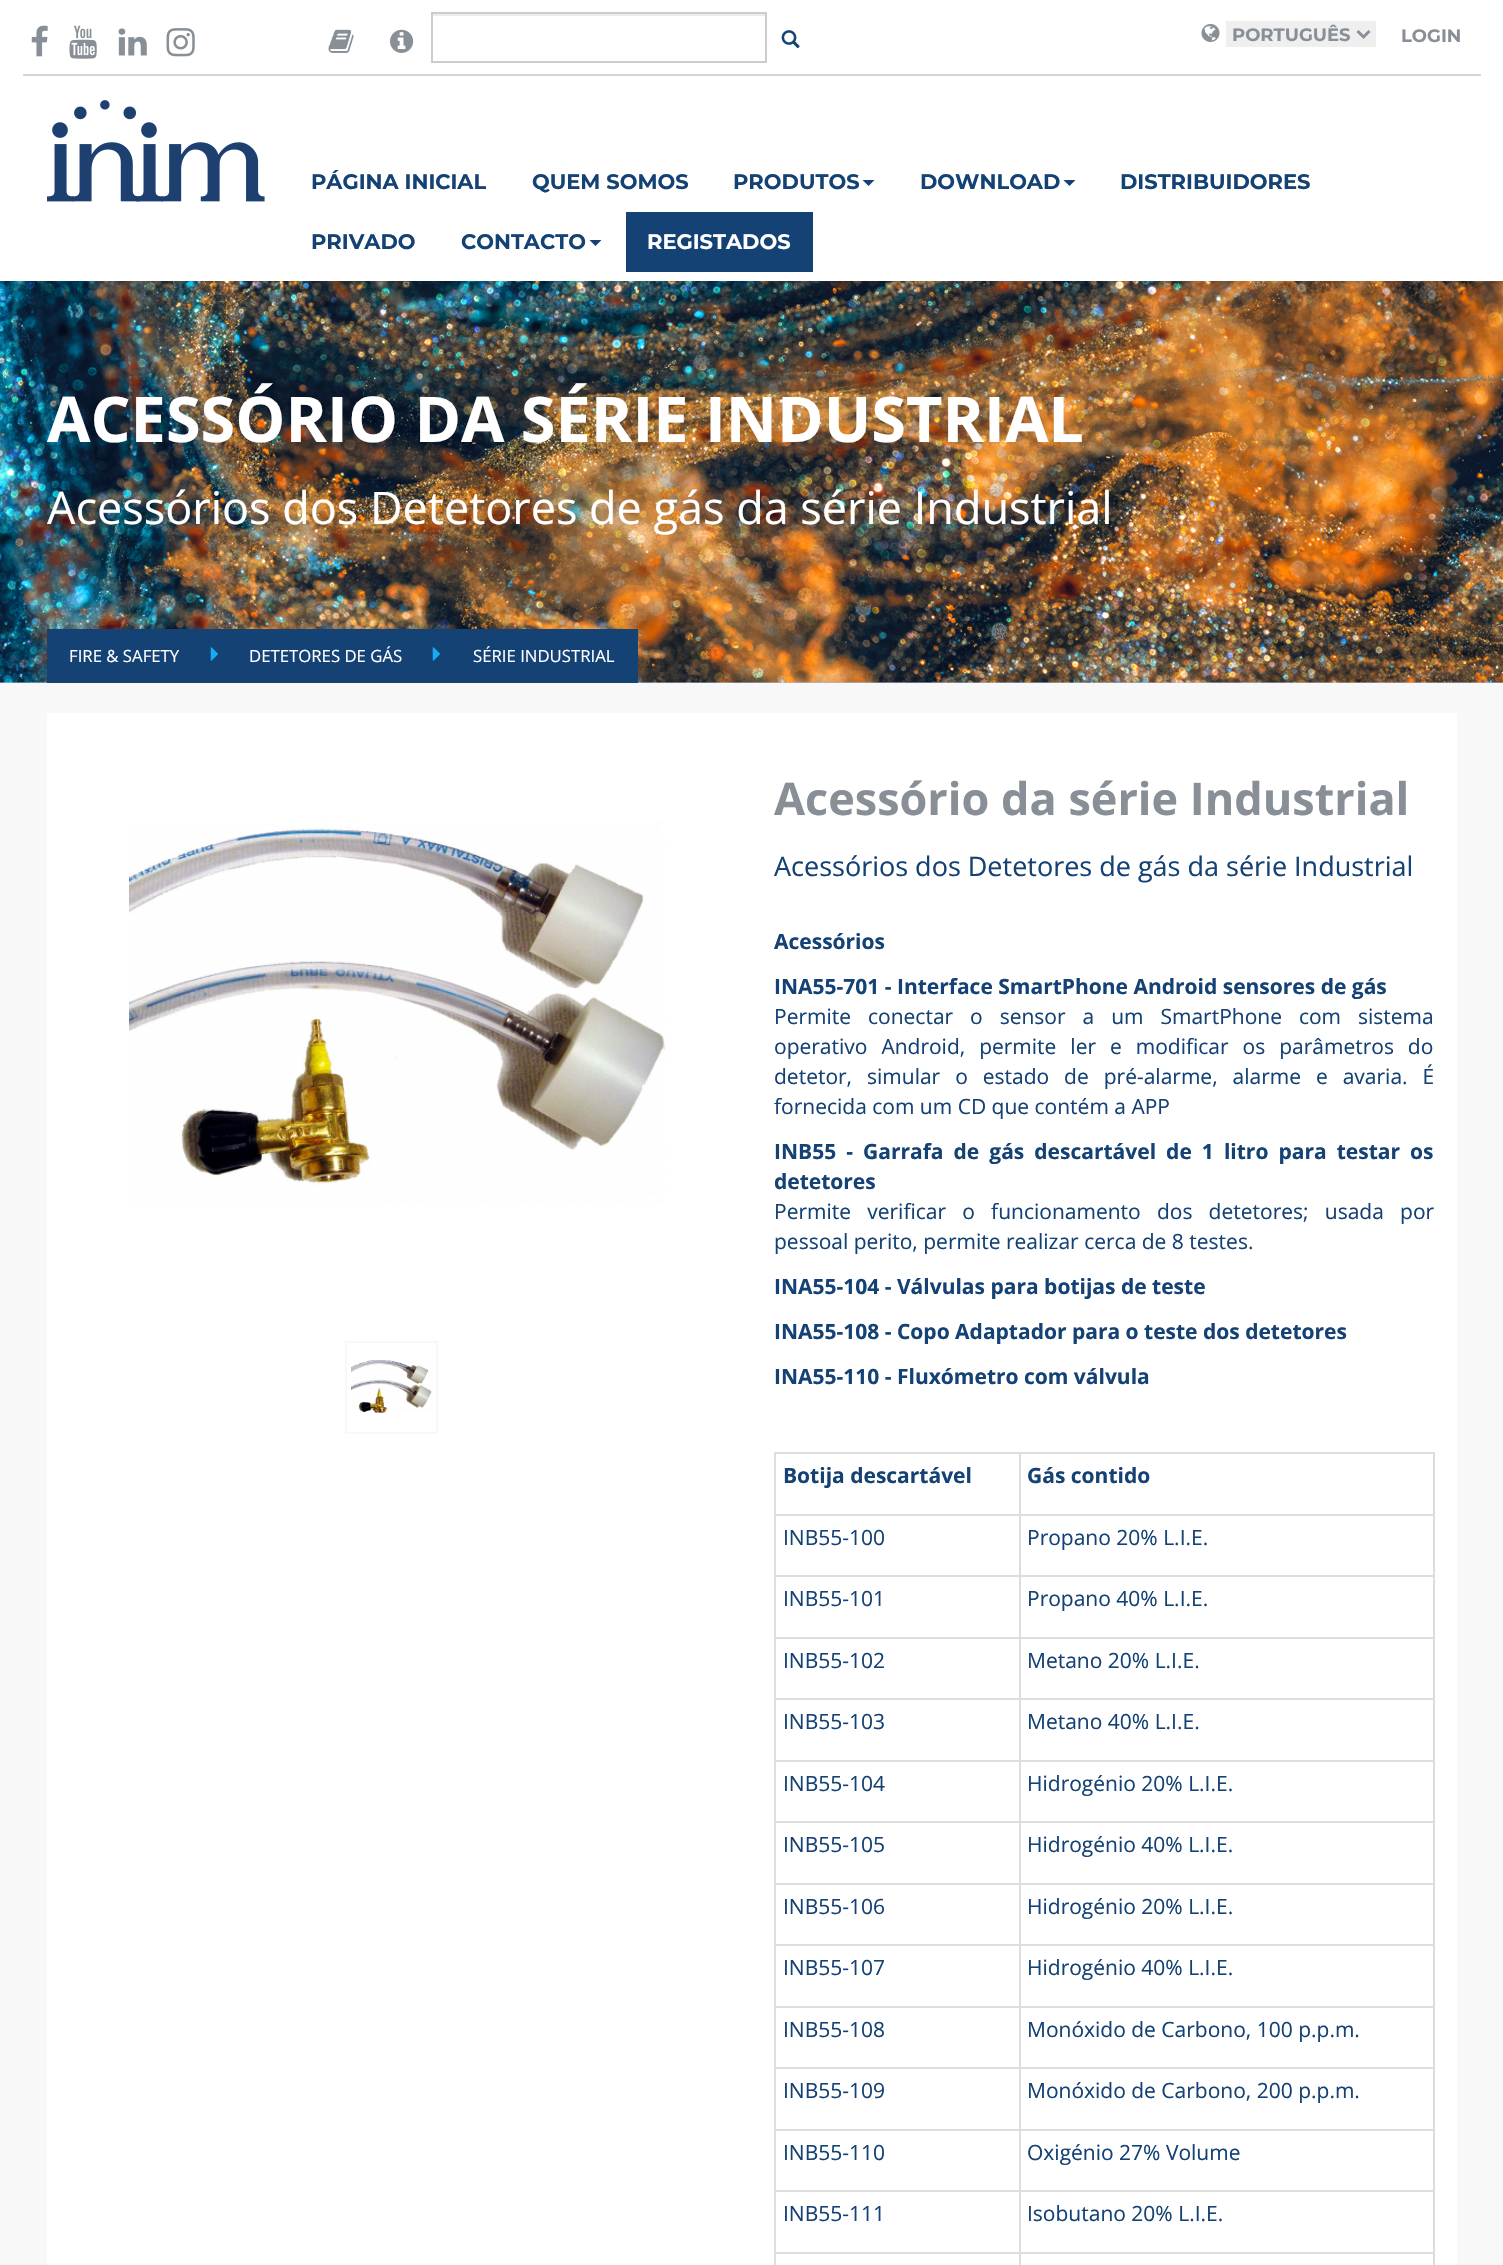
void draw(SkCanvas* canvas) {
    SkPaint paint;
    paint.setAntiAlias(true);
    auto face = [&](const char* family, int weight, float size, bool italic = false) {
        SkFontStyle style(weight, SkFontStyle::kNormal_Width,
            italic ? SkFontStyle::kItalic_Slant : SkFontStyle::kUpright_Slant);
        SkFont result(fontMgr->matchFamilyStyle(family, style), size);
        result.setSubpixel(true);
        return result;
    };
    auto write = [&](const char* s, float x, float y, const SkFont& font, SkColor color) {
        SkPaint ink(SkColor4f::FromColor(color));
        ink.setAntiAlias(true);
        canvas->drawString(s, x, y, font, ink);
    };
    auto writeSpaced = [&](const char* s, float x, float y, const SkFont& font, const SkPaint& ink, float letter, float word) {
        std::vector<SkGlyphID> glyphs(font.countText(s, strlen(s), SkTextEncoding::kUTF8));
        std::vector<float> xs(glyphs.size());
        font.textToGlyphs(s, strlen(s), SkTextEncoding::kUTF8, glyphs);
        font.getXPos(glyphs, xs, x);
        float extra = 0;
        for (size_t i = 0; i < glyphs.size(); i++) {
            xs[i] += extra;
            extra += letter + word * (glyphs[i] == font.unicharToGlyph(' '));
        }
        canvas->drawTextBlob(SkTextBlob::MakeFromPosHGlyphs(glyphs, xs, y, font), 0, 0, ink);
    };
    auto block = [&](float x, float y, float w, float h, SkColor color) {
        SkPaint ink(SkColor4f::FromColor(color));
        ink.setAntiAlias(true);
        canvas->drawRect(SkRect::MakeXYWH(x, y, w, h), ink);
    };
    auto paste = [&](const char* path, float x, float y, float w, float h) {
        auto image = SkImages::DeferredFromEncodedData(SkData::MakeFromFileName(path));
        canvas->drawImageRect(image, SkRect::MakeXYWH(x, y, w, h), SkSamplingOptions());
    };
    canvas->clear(SkColorSetRGB(248, 248, 248));
    block(0, 0, 1503, 281, SK_ColorWHITE);
    block(23, 74, 1458, 2, SkColorSetRGB(212, 212, 212));
    paste("pic1.png", 31, 25, 17, 32);
    paste("pic2.png", 69, 25, 28, 34);
    paste("pic3.png", 118, 28, 29, 28);
    paste("pic4.png", 166, 28, 29, 29);
    paste("pic5.png", 328, 29, 26, 24);
    paste("pic6.png", 390, 29, 24, 24);
    block(432, 14, 333, 2, SkColorSetRGB(236, 236, 236));
    paint.setStyle(SkPaint::kStroke_Style);
    paint.setStrokeWidth(2);
    paint.setColor(SkColorSetRGB(204, 204, 204));
    canvas->drawRect(SkRect::MakeXYWH(432, 13, 334, 49), paint);
    paste("pic7.png", 781, 30, 19, 19);
    paste("pic8.png", 1201, 24, 19, 18);
    block(1226, 21, 150, 26, SkColorSetRGB(239, 239, 239));
    paint.setStrokeWidth(3);
    paint.setColor(SkColorSetRGB(136, 143, 150));
    canvas->drawPath(SkPathBuilder().moveTo(1357.5f, 31).lineTo(1363.5f, 37).lineTo(1369.5f, 31).detach(), paint);
    auto kFont1 = face("Montserrat", 700, 18);
    write("PORTUGUÊS", 1232, 41, kFont1, SkColorSetRGB(136, 143, 150));
    write("LOGIN", 1401, 42, kFont1, SkColorSetRGB(136, 143, 150));
    paste("pic9.png", 47, 100, 218, 102);
    auto kFont2 = face("Montserrat", 700, 21);
    write("PÁGINA INICIAL", 311, 189, kFont2, SkColorSetRGB(21, 66, 117));
    write("QUEM SOMOS", 532, 189, kFont2, SkColorSetRGB(21, 66, 117));
    write("PRODUTOS", 733, 189, kFont2, SkColorSetRGB(21, 66, 117));
    paint.setStyle(SkPaint::kFill_Style);
    paint.setColor(SkColorSetRGB(21, 66, 117));
    canvas->drawPath(SkPathBuilder().moveTo(862.5f, 180).lineTo(874.5f, 180).lineTo(868.5f, 186).close().detach(), paint);
    write("DOWNLOAD", 920, 189, kFont2, SkColorSetRGB(21, 66, 117));
    canvas->drawPath(SkPathBuilder().moveTo(1063.5f, 180).lineTo(1075.5f, 180).lineTo(1069.5f, 186).close().detach(), paint);
    write("DISTRIBUIDORES", 1120, 189, kFont2, SkColorSetRGB(21, 66, 117));
    write("PRIVADO", 311, 249, kFont2, SkColorSetRGB(21, 66, 117));
    write("CONTACTO", 461, 249, kFont2, SkColorSetRGB(21, 66, 117));
    canvas->drawPath(SkPathBuilder().moveTo(589.5f, 240).lineTo(601.5f, 240).lineTo(595.5f, 246).close().detach(), paint);
    block(626, 212, 187, 60, SkColorSetRGB(21, 66, 117));
    write("REGISTADOS", 647, 249, kFont2, SK_ColorWHITE);
    block(0, 682, 1503, 1, SkColorSetRGB(168, 199, 232));
    paste("pic10.png", 0, 281, 1503, 402);
    auto kFont3 = face("Open Sans", 700, 63);
    write("ACESSÓRIO DA SÉRIE INDUSTRIAL", 47, 442, kFont3, SK_ColorWHITE);
    auto kFont4 = face("Open Sans", 400, 45);
    write("Acessórios dos Detetores de gás da série Industrial", 47, 524, kFont4, SK_ColorWHITE);
    block(47, 629, 591, 54, SkColorSetRGB(21, 66, 117));
    auto kFont5 = face("Open Sans", 400, 16.75f);
    write("FIRE & SAFETY", 69, 662, kFont5, SK_ColorWHITE);
    paste("pic11.png", 210, 647, 8, 14);
    write("DETETORES DE GÁS", 249, 662, kFont5, SK_ColorWHITE);
    paste("pic11.png", 432, 647, 8, 14);
    write("SÉRIE INDUSTRIAL", 473, 662, kFont5, SK_ColorWHITE);
    block(47, 713, 1410, 1552, SK_ColorWHITE);
    paste("pic12.png", 129, 822, 537, 382);
    paste("pic13.png", 351, 1360, 81, 53);
    paint.setStyle(SkPaint::kStroke_Style);
    paint.setStrokeWidth(2);
    paint.setColor(SkColorSetRGB(248, 248, 248));
    canvas->drawRect(SkRect::MakeXYWH(346, 1342, 91, 91), paint);
    auto kFont6 = face("Open Sans", 700, 45);
    write("Acessório da série Industrial", 774, 815, kFont6, SkColorSetRGB(136, 143, 150));
    auto kFont7 = face("Open Sans", 400, 27);
    write("Acessórios dos Detetores de gás da série Industrial", 774, 876, kFont7, SkColorSetRGB(21, 66, 117));
    auto kFont8 = face("Open Sans", 700, 21);
    write("Acessórios", 774, 949, kFont8, SkColorSetRGB(21, 66, 117));
    write("INA55-701 - Interface SmartPhone Android sensores de gás", 774, 994, kFont8, SkColorSetRGB(21, 66, 117));
    auto kFont9 = face("Open Sans", 400, 21);
    paint.setStyle(SkPaint::kFill_Style);
    paint.setColor(SkColorSetRGB(21, 66, 117));
    writeSpaced("Permite conectar o sensor a um SmartPhone com sistema", 774, 1024, kFont9, paint, 0, 11.5f);
    writeSpaced("operativo Android, permite ler e modificar os parâmetros do", 774, 1054, kFont9, paint, 0, 8.5f);
    writeSpaced("detetor, simular o estado de pré-alarme, alarme e avaria. É", 774, 1084, kFont9, paint, 0, 9.5f);
    write("fornecida com um CD que contém a APP", 774, 1114, kFont9, SkColorSetRGB(21, 66, 117));
    writeSpaced("INB55 - Garrafa de gás descartável de 1 litro para testar os", 774, 1159, kFont8, paint, 0, 4.6f);
    write("detetores", 774, 1189, kFont8, SkColorSetRGB(21, 66, 117));
    writeSpaced("Permite verificar o funcionamento dos detetores; usada por", 774, 1219, kFont9, paint, 0, 10.75f);
    write("pessoal perito, permite realizar cerca de 8 testes.", 774, 1249, kFont9, SkColorSetRGB(21, 66, 117));
    write("INA55-104 - Válvulas para botijas de teste", 774, 1294, kFont8, SkColorSetRGB(21, 66, 117));
    write("INA55-108 - Copo Adaptador para o teste dos detetores", 774, 1339, kFont8, SkColorSetRGB(21, 66, 117));
    write("INA55-110 - Fluxómetro com válvula", 774, 1384, kFont8, SkColorSetRGB(21, 66, 117));
    block(774, 1452, 660, 2, SkColorSetRGB(221, 221, 221));
    block(1433, 1452, 2, 813, SkColorSetRGB(221, 221, 221));
    block(774, 1452, 2, 813, SkColorSetRGB(221, 221, 221));
    write("Botija descartável", 783, 1483, kFont8, SkColorSetRGB(21, 66, 117));
    block(1019, 1514, 415, 2, SkColorSetRGB(221, 221, 221));
    block(1019, 1575, 415, 2, SkColorSetRGB(221, 221, 221));
    block(1019, 1637, 415, 2, SkColorSetRGB(221, 221, 221));
    block(1019, 1698, 415, 2, SkColorSetRGB(221, 221, 221));
    block(1019, 1760, 415, 2, SkColorSetRGB(221, 221, 221));
    block(1019, 1821, 415, 2, SkColorSetRGB(221, 221, 221));
    block(1019, 1883, 415, 2, SkColorSetRGB(221, 221, 221));
    block(1019, 1944, 415, 2, SkColorSetRGB(221, 221, 221));
    block(1019, 2006, 415, 2, SkColorSetRGB(221, 221, 221));
    block(1019, 2067, 415, 2, SkColorSetRGB(221, 221, 221));
    block(1019, 2129, 415, 2, SkColorSetRGB(221, 221, 221));
    block(1019, 2190, 415, 2, SkColorSetRGB(221, 221, 221));
    block(1019, 2252, 415, 2, SkColorSetRGB(221, 221, 221));
    block(1019, 2252, 2, 13, SkColorSetRGB(221, 221, 221));
    block(774, 2252, 246, 2, SkColorSetRGB(221, 221, 221));
    block(1019, 2190, 2, 63, SkColorSetRGB(221, 221, 221));
    block(774, 2190, 246, 2, SkColorSetRGB(221, 221, 221));
    block(1019, 2129, 2, 63, SkColorSetRGB(221, 221, 221));
    block(774, 2129, 246, 2, SkColorSetRGB(221, 221, 221));
    block(1019, 2067, 2, 63, SkColorSetRGB(221, 221, 221));
    block(774, 2067, 246, 2, SkColorSetRGB(221, 221, 221));
    block(1019, 2006, 2, 63, SkColorSetRGB(221, 221, 221));
    block(774, 2006, 246, 2, SkColorSetRGB(221, 221, 221));
    block(1019, 1944, 2, 63, SkColorSetRGB(221, 221, 221));
    block(774, 1944, 246, 2, SkColorSetRGB(221, 221, 221));
    block(1019, 1883, 2, 63, SkColorSetRGB(221, 221, 221));
    block(774, 1883, 246, 2, SkColorSetRGB(221, 221, 221));
    block(1019, 1821, 2, 63, SkColorSetRGB(221, 221, 221));
    block(774, 1821, 246, 2, SkColorSetRGB(221, 221, 221));
    block(1019, 1760, 2, 63, SkColorSetRGB(221, 221, 221));
    block(774, 1760, 246, 2, SkColorSetRGB(221, 221, 221));
    block(1019, 1698, 2, 63, SkColorSetRGB(221, 221, 221));
    block(774, 1698, 246, 2, SkColorSetRGB(221, 221, 221));
    block(1019, 1637, 2, 63, SkColorSetRGB(221, 221, 221));
    block(774, 1637, 246, 2, SkColorSetRGB(221, 221, 221));
    block(1019, 1575, 2, 63, SkColorSetRGB(221, 221, 221));
    block(774, 1575, 246, 2, SkColorSetRGB(221, 221, 221));
    block(1019, 1514, 2, 63, SkColorSetRGB(221, 221, 221));
    block(774, 1514, 246, 2, SkColorSetRGB(221, 221, 221));
    block(1019, 1452, 2, 63, SkColorSetRGB(221, 221, 221));
    write("Gás contido", 1027, 1483, kFont8, SkColorSetRGB(21, 66, 117));
    write("INB55-100", 783, 1545, kFont9, SkColorSetRGB(21, 66, 117));
    write("Propano 20% L.I.E.", 1027, 1545, kFont9, SkColorSetRGB(21, 66, 117));
    write("INB55-101", 783, 1606, kFont9, SkColorSetRGB(21, 66, 117));
    write("Propano 40% L.I.E.", 1027, 1606, kFont9, SkColorSetRGB(21, 66, 117));
    write("INB55-102", 783, 1668, kFont9, SkColorSetRGB(21, 66, 117));
    write("Metano 20% L.I.E.", 1027, 1668, kFont9, SkColorSetRGB(21, 66, 117));
    write("INB55-103", 783, 1729, kFont9, SkColorSetRGB(21, 66, 117));
    write("Metano 40% L.I.E.", 1027, 1729, kFont9, SkColorSetRGB(21, 66, 117));
    write("INB55-104", 783, 1791, kFont9, SkColorSetRGB(21, 66, 117));
    write("Hidrogénio 20% L.I.E.", 1027, 1791, kFont9, SkColorSetRGB(21, 66, 117));
    write("INB55-105", 783, 1852, kFont9, SkColorSetRGB(21, 66, 117));
    write("Hidrogénio 40% L.I.E.", 1027, 1852, kFont9, SkColorSetRGB(21, 66, 117));
    write("INB55-106", 783, 1914, kFont9, SkColorSetRGB(21, 66, 117));
    write("Hidrogénio 20% L.I.E.", 1027, 1914, kFont9, SkColorSetRGB(21, 66, 117));
    write("INB55-107", 783, 1975, kFont9, SkColorSetRGB(21, 66, 117));
    write("Hidrogénio 40% L.I.E.", 1027, 1975, kFont9, SkColorSetRGB(21, 66, 117));
    write("INB55-108", 783, 2037, kFont9, SkColorSetRGB(21, 66, 117));
    write("Monóxido de Carbono, 100 p.p.m.", 1027, 2037, kFont9, SkColorSetRGB(21, 66, 117));
    write("INB55-109", 783, 2098, kFont9, SkColorSetRGB(21, 66, 117));
    write("Monóxido de Carbono, 200 p.p.m.", 1027, 2098, kFont9, SkColorSetRGB(21, 66, 117));
    write("INB55-110", 783, 2160, kFont9, SkColorSetRGB(21, 66, 117));
    write("Oxigénio 27% Volume", 1027, 2160, kFont9, SkColorSetRGB(21, 66, 117));
    write("INB55-111", 783, 2221, kFont9, SkColorSetRGB(21, 66, 117));
    write("Isobutano 20% L.I.E.", 1027, 2221, kFont9, SkColorSetRGB(21, 66, 117));
}
